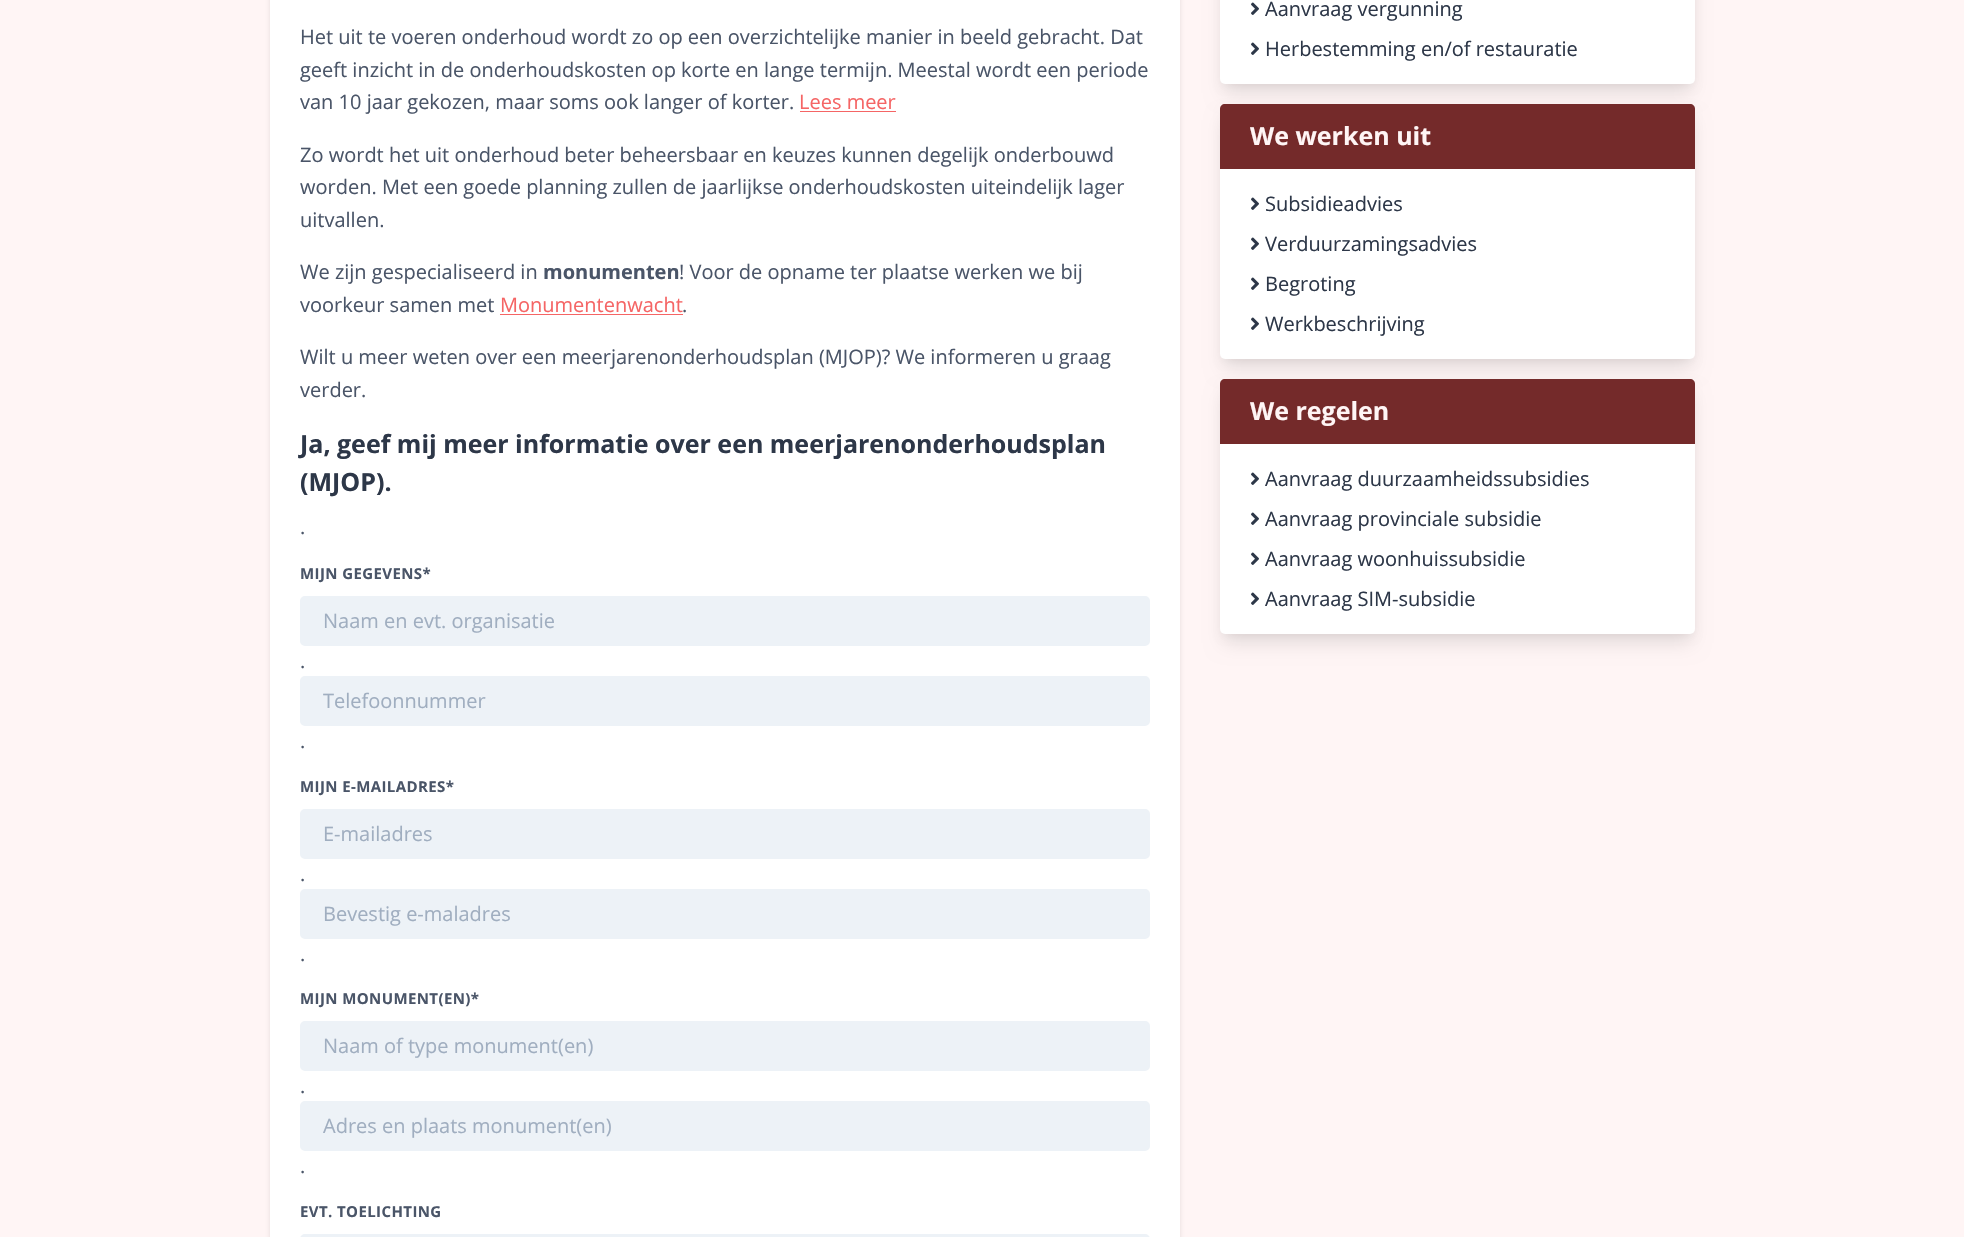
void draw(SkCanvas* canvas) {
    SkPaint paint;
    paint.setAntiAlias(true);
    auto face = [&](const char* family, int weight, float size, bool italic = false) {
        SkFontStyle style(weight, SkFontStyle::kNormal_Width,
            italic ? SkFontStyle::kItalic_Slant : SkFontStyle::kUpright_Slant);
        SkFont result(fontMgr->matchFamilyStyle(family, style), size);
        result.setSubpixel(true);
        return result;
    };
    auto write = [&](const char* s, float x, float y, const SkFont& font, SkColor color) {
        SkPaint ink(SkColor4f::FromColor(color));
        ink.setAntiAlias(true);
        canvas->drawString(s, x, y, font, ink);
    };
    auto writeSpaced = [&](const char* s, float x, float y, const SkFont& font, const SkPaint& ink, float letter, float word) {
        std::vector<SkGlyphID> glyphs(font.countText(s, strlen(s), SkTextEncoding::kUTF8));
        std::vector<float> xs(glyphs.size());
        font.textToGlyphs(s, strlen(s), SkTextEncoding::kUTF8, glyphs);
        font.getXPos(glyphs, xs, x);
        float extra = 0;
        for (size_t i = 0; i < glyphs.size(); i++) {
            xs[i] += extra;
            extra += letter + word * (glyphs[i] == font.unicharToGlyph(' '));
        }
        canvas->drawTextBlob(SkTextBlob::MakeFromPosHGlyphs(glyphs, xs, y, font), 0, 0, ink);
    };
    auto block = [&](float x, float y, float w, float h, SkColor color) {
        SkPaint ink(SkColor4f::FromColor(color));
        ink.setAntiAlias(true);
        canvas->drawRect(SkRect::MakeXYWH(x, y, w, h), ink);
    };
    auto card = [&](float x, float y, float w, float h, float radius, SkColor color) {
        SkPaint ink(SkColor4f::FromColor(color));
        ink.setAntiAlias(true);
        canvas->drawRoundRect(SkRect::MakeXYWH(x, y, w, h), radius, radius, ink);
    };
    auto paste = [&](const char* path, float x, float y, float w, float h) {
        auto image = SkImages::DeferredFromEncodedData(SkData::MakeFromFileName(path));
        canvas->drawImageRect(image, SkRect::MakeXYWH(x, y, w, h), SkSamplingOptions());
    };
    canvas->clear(SkColorSetRGB(255, 245, 245));
    paint.setColor(SkColorSetARGB(26, 0, 0, 0));
    paint.setMaskFilter(SkMaskFilter::MakeBlur(kNormal_SkBlurStyle, 2));
    canvas->drawRoundRect(SkRect::MakeXYWH(270, -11, 910, 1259), 5, 5, paint);
    paint.setMaskFilter(nullptr);
    block(270, 0, 910, 1237, SK_ColorWHITE);
    auto kFont1 = face("Open Sans", 400, 20);
    write("Het uit te voeren onderhoud wordt zo op een overzichtelijke manier in beeld gebracht. Dat", 300, 44, kFont1, SkColorSetRGB(74, 85, 104));
    write("geeft inzicht in de onderhoudskosten op korte en lange termijn. Meestal wordt een periode", 300, 77, kFont1, SkColorSetRGB(74, 85, 104));
    write("van 10 jaar gekozen, maar soms ook langer of korter.", 300, 109, kFont1, SkColorSetRGB(74, 85, 104));
    write("Lees meer", 799, 109, kFont1, SkColorSetRGB(245, 101, 101));
    block(800, 111, 96, 1, SkColorSetRGB(245, 101, 101));
    write("Zo wordt het uit onderhoud beter beheersbaar en keuzes kunnen degelijk onderbouwd", 300, 162, kFont1, SkColorSetRGB(74, 85, 104));
    write("worden. Met een goede planning zullen de jaarlijkse onderhoudskosten uiteindelijk lager", 300, 194, kFont1, SkColorSetRGB(74, 85, 104));
    write("uitvallen.", 300, 227, kFont1, SkColorSetRGB(74, 85, 104));
    write("We zijn gespecialiseerd in", 300, 279, kFont1, SkColorSetRGB(74, 85, 104));
    auto kFont2 = face("Open Sans", 700, 20);
    write("monumenten", 543, 279, kFont2, SkColorSetRGB(74, 85, 104));
    write("! Voor de opname ter plaatse werken we bij", 679, 279, kFont1, SkColorSetRGB(74, 85, 104));
    write("voorkeur samen met", 300, 312, kFont1, SkColorSetRGB(74, 85, 104));
    write("Monumentenwacht", 500, 312, kFont1, SkColorSetRGB(245, 101, 101));
    block(500, 314, 183, 1, SkColorSetRGB(245, 101, 101));
    write(".", 682, 312, kFont1, SkColorSetRGB(74, 85, 104));
    write("Wilt u meer weten over een meerjarenonderhoudsplan (MJOP)? We informeren u graag", 300, 364, kFont1, SkColorSetRGB(74, 85, 104));
    write("verder.", 300, 397, kFont1, SkColorSetRGB(74, 85, 104));
    auto kFont3 = face("Open Sans", 700, 25);
    write("Ja, geef mij meer informatie over een meerjarenonderhoudsplan", 300, 453, kFont3, SkColorSetRGB(45, 55, 72));
    write("(MJOP).", 300, 491, kFont3, SkColorSetRGB(45, 55, 72));
    write(".", 300, 534, kFont1, SkColorSetRGB(74, 85, 104));
    auto kFont4 = face("Open Sans", 700, 15);
    paint.setColor(SkColorSetRGB(74, 85, 104));
    writeSpaced("MIJN GEGEVENS*", 300, 579, kFont4, paint, 0.4f, 0);
    paint.setColor(SkColorSetRGB(237, 242, 247));
    canvas->drawRoundRect(SkRect::MakeXYWH(301.5f, 597.5f, 847, 47), 3.5f, 3.5f, paint);
    paint.setStyle(SkPaint::kStroke_Style);
    paint.setStrokeWidth(3);
    canvas->drawRoundRect(SkRect::MakeXYWH(301.5f, 597.5f, 847, 47), 3.5f, 3.5f, paint);
    write("Naam en evt. organisatie", 323, 628, kFont1, SkColorSetRGB(160, 174, 192));
    write(".", 300, 668, kFont1, SkColorSetRGB(74, 85, 104));
    paint.setStyle(SkPaint::kFill_Style);
    canvas->drawRoundRect(SkRect::MakeXYWH(301.5f, 677.5f, 847, 47), 3.5f, 3.5f, paint);
    paint.setStyle(SkPaint::kStroke_Style);
    canvas->drawRoundRect(SkRect::MakeXYWH(301.5f, 677.5f, 847, 47), 3.5f, 3.5f, paint);
    canvas->save();
    canvas->clipRect(SkRect::MakeXYWH(323, 688, 805, 27));
    write("Telefoonnummer", 323, 708, kFont1, SkColorSetRGB(160, 174, 192));
    canvas->restore();
    write(".", 300, 748, kFont1, SkColorSetRGB(74, 85, 104));
    paint.setStyle(SkPaint::kFill_Style);
    paint.setColor(SkColorSetRGB(74, 85, 104));
    writeSpaced("MIJN E-MAILADRES*", 300, 792, kFont4, paint, 0.4f, 0);
    paint.setColor(SkColorSetRGB(237, 242, 247));
    canvas->drawRoundRect(SkRect::MakeXYWH(301.5f, 810.5f, 847, 47), 3.5f, 3.5f, paint);
    paint.setStyle(SkPaint::kStroke_Style);
    canvas->drawRoundRect(SkRect::MakeXYWH(301.5f, 810.5f, 847, 47), 3.5f, 3.5f, paint);
    write("E-mailadres", 323, 841, kFont1, SkColorSetRGB(160, 174, 192));
    write(".", 300, 881, kFont1, SkColorSetRGB(74, 85, 104));
    paint.setStyle(SkPaint::kFill_Style);
    canvas->drawRoundRect(SkRect::MakeXYWH(301.5f, 890.5f, 847, 47), 3.5f, 3.5f, paint);
    paint.setStyle(SkPaint::kStroke_Style);
    canvas->drawRoundRect(SkRect::MakeXYWH(301.5f, 890.5f, 847, 47), 3.5f, 3.5f, paint);
    write("Bevestig e-maladres", 323, 921, kFont1, SkColorSetRGB(160, 174, 192));
    write(".", 300, 961, kFont1, SkColorSetRGB(74, 85, 104));
    paint.setStyle(SkPaint::kFill_Style);
    paint.setColor(SkColorSetRGB(74, 85, 104));
    writeSpaced("MIJN MONUMENT(EN)*", 300, 1004, kFont4, paint, 0.4f, 0);
    paint.setColor(SkColorSetRGB(237, 242, 247));
    canvas->drawRoundRect(SkRect::MakeXYWH(301.5f, 1022.5f, 847, 47), 3.5f, 3.5f, paint);
    paint.setStyle(SkPaint::kStroke_Style);
    canvas->drawRoundRect(SkRect::MakeXYWH(301.5f, 1022.5f, 847, 47), 3.5f, 3.5f, paint);
    write("Naam of type monument(en)", 323, 1053, kFont1, SkColorSetRGB(160, 174, 192));
    write(".", 300, 1093, kFont1, SkColorSetRGB(74, 85, 104));
    paint.setStyle(SkPaint::kFill_Style);
    canvas->drawRoundRect(SkRect::MakeXYWH(301.5f, 1102.5f, 847, 47), 3.5f, 3.5f, paint);
    paint.setStyle(SkPaint::kStroke_Style);
    canvas->drawRoundRect(SkRect::MakeXYWH(301.5f, 1102.5f, 847, 47), 3.5f, 3.5f, paint);
    write("Adres en plaats monument(en)", 323, 1133, kFont1, SkColorSetRGB(160, 174, 192));
    write(".", 300, 1173, kFont1, SkColorSetRGB(74, 85, 104));
    paint.setStyle(SkPaint::kFill_Style);
    paint.setColor(SkColorSetRGB(74, 85, 104));
    writeSpaced("EVT. TOELICHTING", 300, 1217, kFont4, paint, 0.4f, 0);
    paint.setStyle(SkPaint::kStroke_Style);
    paint.setColor(SkColorSetRGB(237, 242, 247));
    canvas->drawRoundRect(SkRect::MakeXYWH(301.5f, 1235.5f, 847, 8), 3.5f, 3.5f, paint);
    paint.setStyle(SkPaint::kFill_Style);
    paint.setColor(SkColorSetARGB(13, 0, 0, 0));
    paint.setMaskFilter(SkMaskFilter::MakeBlur(kNormal_SkBlurStyle, 4));
    canvas->drawRoundRect(SkRect::MakeXYWH(1223, -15, 470, 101), 2.5f, 2.5f, paint);
    paint.setMaskFilter(nullptr);
    paint.setColor(SkColorSetARGB(26, 0, 0, 0));
    paint.setMaskFilter(SkMaskFilter::MakeBlur(kNormal_SkBlurStyle, 9.5f));
    canvas->drawRoundRect(SkRect::MakeXYWH(1224, -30, 467, 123), 1, 1, paint);
    paint.setMaskFilter(nullptr);
    card(1220, -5, 475, 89, 5, SK_ColorWHITE);
    paste("pic1.png", 1251, 2, 8, 13);
    write("Aanvraag vergunning", 1265, 16, kFont1, SkColorSetRGB(45, 55, 72));
    paste("pic1.png", 1251, 42, 8, 13);
    write("Herbestemming en/of restauratie", 1265, 56, kFont1, SkColorSetRGB(45, 55, 72));
    paint.setColor(SkColorSetARGB(13, 0, 0, 0));
    paint.setMaskFilter(SkMaskFilter::MakeBlur(kNormal_SkBlurStyle, 4));
    canvas->drawRoundRect(SkRect::MakeXYWH(1223, 111, 470, 250), 2.5f, 2.5f, paint);
    paint.setMaskFilter(nullptr);
    paint.setColor(SkColorSetARGB(26, 0, 0, 0));
    paint.setMaskFilter(SkMaskFilter::MakeBlur(kNormal_SkBlurStyle, 9.5f));
    canvas->drawRoundRect(SkRect::MakeXYWH(1224, 120, 467, 248), 1, 1, paint);
    paint.setMaskFilter(nullptr);
    card(1220, 104, 475, 255, 5, SK_ColorWHITE);
    paint.setColor(SkColorSetRGB(116, 42, 42));
    canvas->drawPath(SkPathBuilder().moveTo(1225, 104).lineTo(1690, 104).cubicTo(1693, 104, 1695, 106, 1695, 109).lineTo(1695, 169).lineTo(1220, 169).lineTo(1220, 109).cubicTo(1220, 106, 1222, 104, 1225, 104).close().detach(), paint);
    write("We werken uit", 1250, 145, kFont3, SkColorSetRGB(255, 245, 245));
    paste("pic1.png", 1251, 197, 8, 13);
    write("Subsidieadvies", 1265, 211, kFont1, SkColorSetRGB(45, 55, 72));
    paste("pic1.png", 1251, 237, 8, 13);
    write("Verduurzamingsadvies", 1265, 251, kFont1, SkColorSetRGB(45, 55, 72));
    paste("pic1.png", 1251, 277, 8, 13);
    write("Begroting", 1265, 291, kFont1, SkColorSetRGB(45, 55, 72));
    paste("pic1.png", 1251, 317, 8, 13);
    write("Werkbeschrijving", 1265, 331, kFont1, SkColorSetRGB(45, 55, 72));
    paint.setColor(SkColorSetARGB(13, 0, 0, 0));
    paint.setMaskFilter(SkMaskFilter::MakeBlur(kNormal_SkBlurStyle, 4));
    canvas->drawRoundRect(SkRect::MakeXYWH(1223, 386, 470, 250), 2.5f, 2.5f, paint);
    paint.setMaskFilter(nullptr);
    paint.setColor(SkColorSetARGB(26, 0, 0, 0));
    paint.setMaskFilter(SkMaskFilter::MakeBlur(kNormal_SkBlurStyle, 9.5f));
    canvas->drawRoundRect(SkRect::MakeXYWH(1224, 395, 467, 248), 1, 1, paint);
    paint.setMaskFilter(nullptr);
    card(1220, 379, 475, 255, 5, SK_ColorWHITE);
    paint.setColor(SkColorSetRGB(116, 42, 42));
    canvas->drawPath(SkPathBuilder().moveTo(1225, 379).lineTo(1690, 379).cubicTo(1693, 379, 1695, 381, 1695, 384).lineTo(1695, 444).lineTo(1220, 444).lineTo(1220, 384).cubicTo(1220, 381, 1222, 379, 1225, 379).close().detach(), paint);
    write("We regelen", 1250, 420, kFont3, SkColorSetRGB(255, 245, 245));
    paste("pic1.png", 1251, 472, 8, 13);
    write("Aanvraag duurzaamheidssubsidies", 1265, 486, kFont1, SkColorSetRGB(45, 55, 72));
    paste("pic1.png", 1251, 512, 8, 13);
    write("Aanvraag provinciale subsidie", 1265, 526, kFont1, SkColorSetRGB(45, 55, 72));
    paste("pic1.png", 1251, 552, 8, 13);
    write("Aanvraag woonhuissubsidie", 1265, 566, kFont1, SkColorSetRGB(45, 55, 72));
    paste("pic1.png", 1251, 592, 8, 13);
    write("Aanvraag SIM-subsidie", 1265, 606, kFont1, SkColorSetRGB(45, 55, 72));
}
